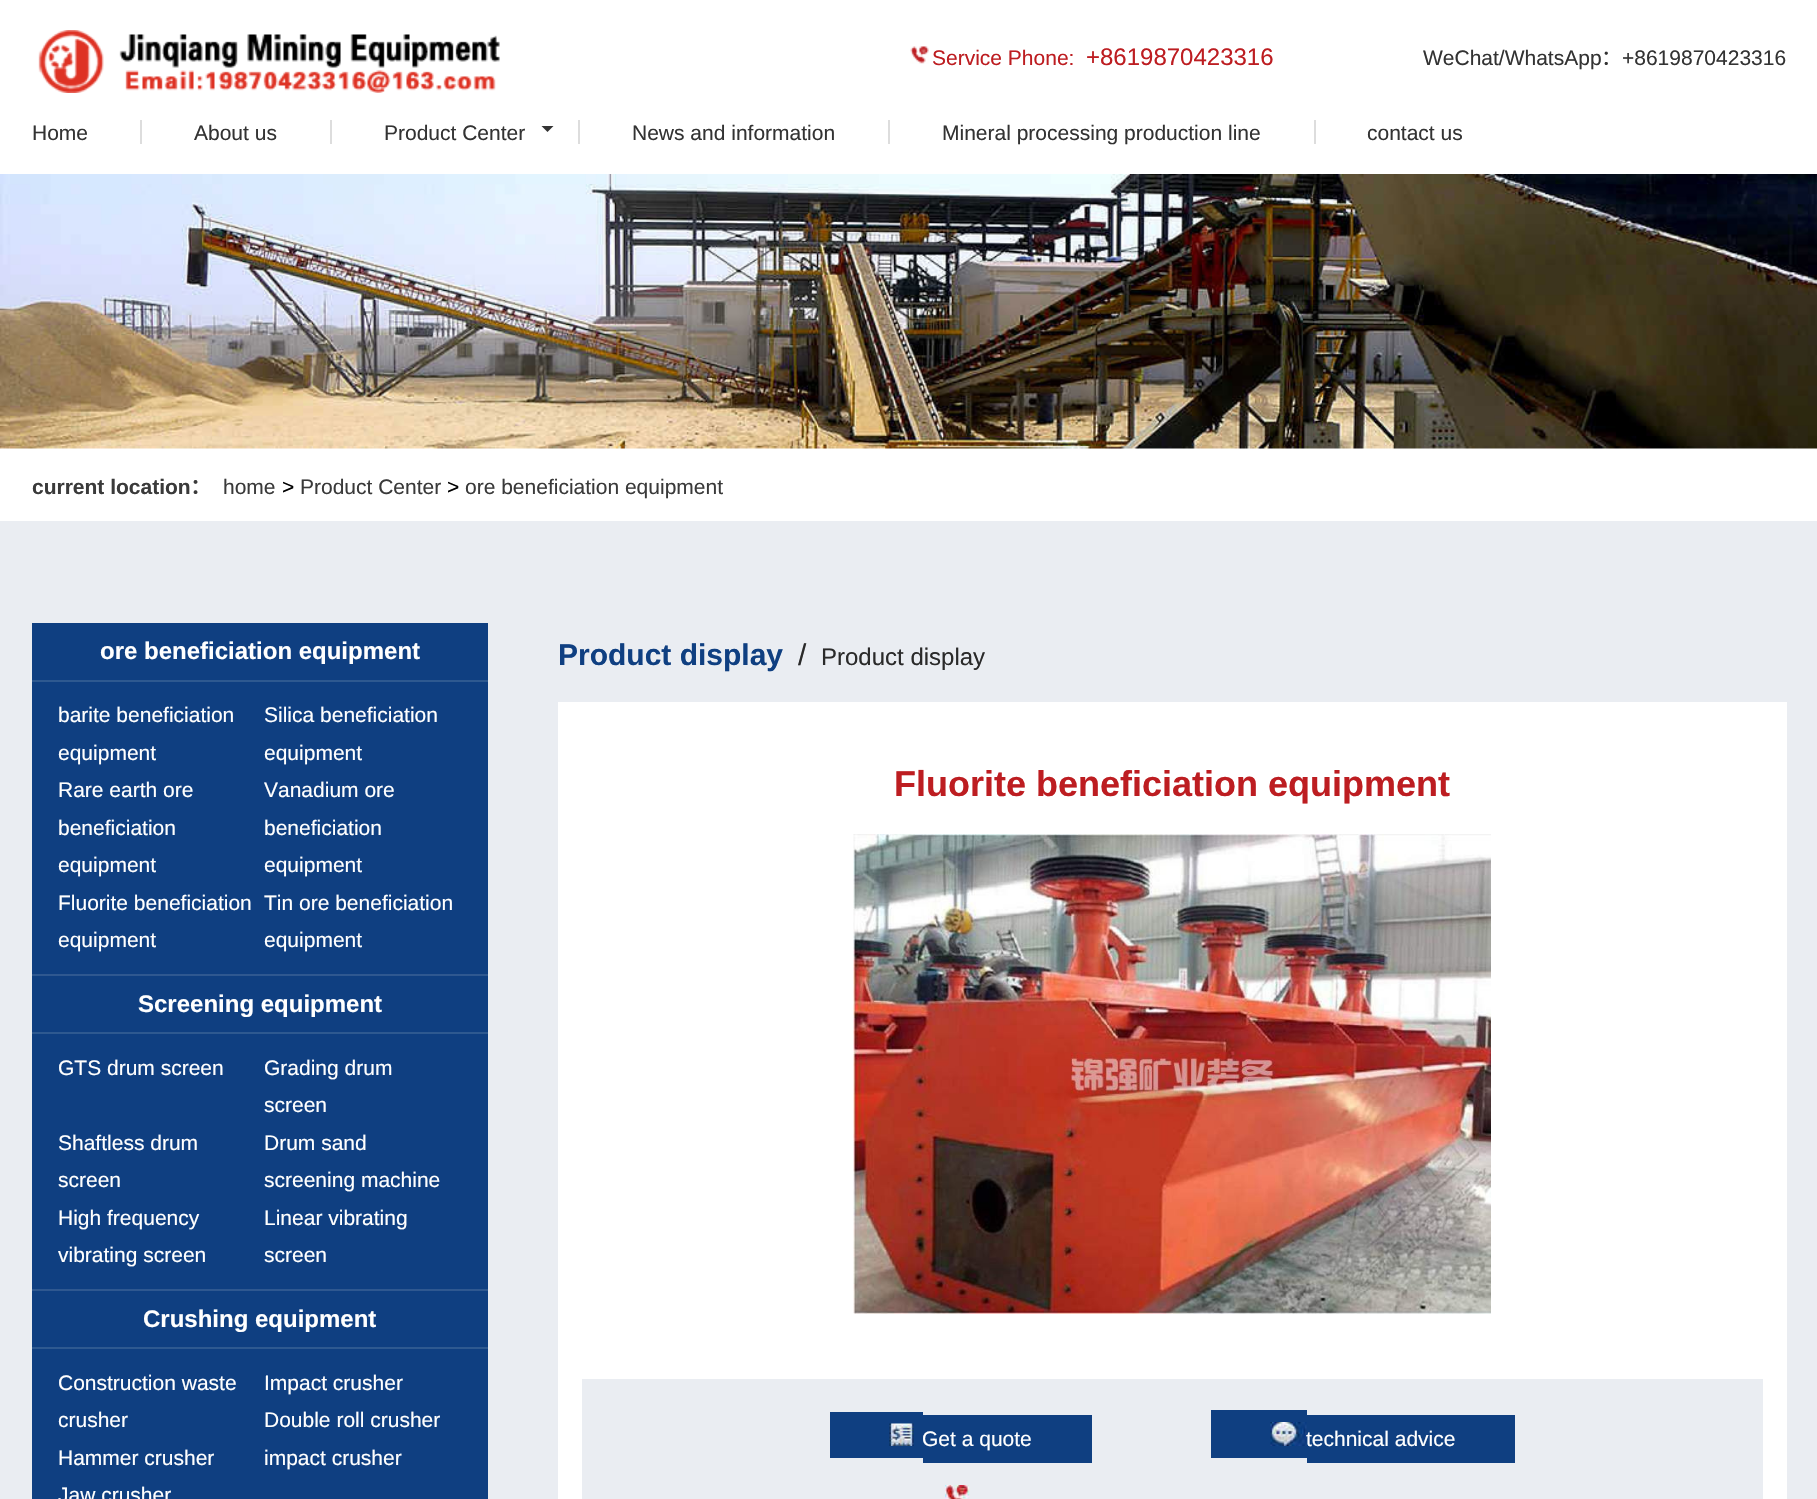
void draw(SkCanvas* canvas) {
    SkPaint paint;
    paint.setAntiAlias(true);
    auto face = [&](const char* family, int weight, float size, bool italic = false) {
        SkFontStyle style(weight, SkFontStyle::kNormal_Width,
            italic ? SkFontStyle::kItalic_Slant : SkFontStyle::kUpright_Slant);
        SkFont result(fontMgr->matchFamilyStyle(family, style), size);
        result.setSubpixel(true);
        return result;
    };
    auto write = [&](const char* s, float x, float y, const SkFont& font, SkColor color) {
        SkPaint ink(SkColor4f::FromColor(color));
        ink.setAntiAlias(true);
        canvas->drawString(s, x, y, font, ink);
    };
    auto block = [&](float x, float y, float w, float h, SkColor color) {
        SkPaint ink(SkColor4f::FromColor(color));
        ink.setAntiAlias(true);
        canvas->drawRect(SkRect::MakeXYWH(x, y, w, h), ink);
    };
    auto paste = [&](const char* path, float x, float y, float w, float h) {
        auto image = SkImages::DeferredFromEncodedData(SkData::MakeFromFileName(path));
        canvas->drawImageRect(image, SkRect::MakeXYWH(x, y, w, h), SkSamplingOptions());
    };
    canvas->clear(SK_ColorWHITE);
    paste("pic1.png", 38, 30, 462, 63);
    paste("pic2.png", 910, 46, 19, 18);
    auto kFont1 = face("Liberation Sans", 400, 21);
    write("Service Phone:", 932, 65, kFont1, SkColorSetRGB(189, 29, 33));
    auto kFont2 = face("Liberation Sans", 400, 24);
    write("+8619870423316", 1086, 65, kFont2, SkColorSetRGB(189, 29, 33));
    write("WeChat/WhatsApp", 1423, 65, kFont1, SkColorSetRGB(51, 51, 51));
    auto kFont3 = face("Noto Sans CJK SC", 400, 21);
    write("：", 1601, 65, kFont3, SkColorSetRGB(51, 51, 51));
    write("+8619870423316", 1622, 65, kFont1, SkColorSetRGB(51, 51, 51));
    block(140, 120, 2, 24, SkColorSetRGB(221, 221, 221));
    write("Home", 32, 140, kFont1, SkColorSetRGB(51, 51, 51));
    block(330, 120, 2, 24, SkColorSetRGB(221, 221, 221));
    write("About us", 194, 140, kFont1, SkColorSetRGB(51, 51, 51));
    block(578, 120, 2, 24, SkColorSetRGB(221, 221, 221));
    write("Product Center", 384, 140, kFont1, SkColorSetRGB(51, 51, 51));
    paint.setColor(SkColorSetRGB(51, 51, 51));
    canvas->drawPath(SkPathBuilder().moveTo(541.5f, 126).lineTo(553.5f, 126).lineTo(547.5f, 132).close().detach(), paint);
    block(888, 120, 2, 24, SkColorSetRGB(221, 221, 221));
    write("News and information", 632, 140, kFont1, SkColorSetRGB(51, 51, 51));
    block(1314, 120, 2, 24, SkColorSetRGB(221, 221, 221));
    write("Mineral processing production line", 942, 140, kFont1, SkColorSetRGB(51, 51, 51));
    write("contact us", 1367, 140, kFont1, SkColorSetRGB(51, 51, 51));
    paste("pic3.png", 0, 174, 1817, 275);
    auto kFont4 = face("Liberation Sans", 700, 21);
    write("current location", 32, 494, kFont4, SkColorSetRGB(58, 58, 58));
    auto kFont5 = face("Noto Sans CJK SC", 700, 21);
    write("：", 190, 494, kFont5, SkColorSetRGB(58, 58, 58));
    write("home", 223, 494, kFont1, SkColorSetRGB(58, 58, 58));
    write(">", 282, 494, kFont1, SK_ColorBLACK);
    write("Product Center", 300, 494, kFont1, SkColorSetRGB(58, 58, 58));
    write(">", 447, 494, kFont1, SK_ColorBLACK);
    write("ore beneficiation equipment", 465, 494, kFont1, SkColorSetRGB(58, 58, 58));
    block(0, 521, 1817, 978, SkColorSetRGB(234, 237, 242));
    block(32, 623, 456, 876, SkColorSetRGB(15, 63, 129));
    block(32, 680, 456, 2, SkColorSetRGB(46, 89, 144));
    auto kFont6 = face("Liberation Sans", 700, 24);
    write("ore beneficiation equipment", 100, 659, kFont6, SK_ColorWHITE);
    block(32, 974, 456, 2, SkColorSetRGB(47, 88, 144));
    write("barite beneficiation", 58, 722, kFont1, SK_ColorWHITE);
    write("equipment", 58, 760, kFont1, SK_ColorWHITE);
    write("Silica beneficiation", 264, 722, kFont1, SK_ColorWHITE);
    write("equipment", 264, 760, kFont1, SK_ColorWHITE);
    write("Rare earth ore", 58, 797, kFont1, SK_ColorWHITE);
    write("beneficiation", 58, 835, kFont1, SK_ColorWHITE);
    write("equipment", 58, 872, kFont1, SK_ColorWHITE);
    write("Vanadium ore", 264, 797, kFont1, SK_ColorWHITE);
    write("beneficiation", 264, 835, kFont1, SK_ColorWHITE);
    write("equipment", 264, 872, kFont1, SK_ColorWHITE);
    write("Fluorite beneficiation", 58, 910, kFont1, SK_ColorWHITE);
    write("equipment", 58, 947, kFont1, SK_ColorWHITE);
    write("Tin ore beneficiation", 264, 910, kFont1, SK_ColorWHITE);
    write("equipment", 264, 947, kFont1, SK_ColorWHITE);
    block(32, 1032, 456, 2, SkColorSetRGB(46, 89, 144));
    write("Screening equipment", 138, 1012, kFont6, SK_ColorWHITE);
    block(32, 1289, 456, 2, SkColorSetRGB(47, 88, 144));
    write("GTS drum screen", 58, 1075, kFont1, SK_ColorWHITE);
    write("Grading drum", 264, 1075, kFont1, SK_ColorWHITE);
    write("screen", 264, 1112, kFont1, SK_ColorWHITE);
    write("Shaftless drum", 58, 1150, kFont1, SK_ColorWHITE);
    write("screen", 58, 1187, kFont1, SK_ColorWHITE);
    write("Drum sand", 264, 1150, kFont1, SK_ColorWHITE);
    write("screening machine", 264, 1187, kFont1, SK_ColorWHITE);
    write("High frequency", 58, 1225, kFont1, SK_ColorWHITE);
    write("vibrating screen", 58, 1262, kFont1, SK_ColorWHITE);
    write("Linear vibrating", 264, 1225, kFont1, SK_ColorWHITE);
    write("screen", 264, 1262, kFont1, SK_ColorWHITE);
    block(32, 1347, 456, 2, SkColorSetRGB(46, 89, 144));
    write("Crushing equipment", 143, 1327, kFont6, SK_ColorWHITE);
    write("Construction waste", 58, 1390, kFont1, SK_ColorWHITE);
    write("crusher", 58, 1427, kFont1, SK_ColorWHITE);
    write("Impact crusher", 264, 1390, kFont1, SK_ColorWHITE);
    write("Double roll crusher", 264, 1427, kFont1, SK_ColorWHITE);
    write("Hammer crusher", 58, 1465, kFont1, SK_ColorWHITE);
    write("impact crusher", 264, 1465, kFont1, SK_ColorWHITE);
    write("Jaw crusher", 58, 1502, kFont1, SK_ColorWHITE);
    auto kFont7 = face("Liberation Sans", 700, 30);
    write("Product display", 558, 665, kFont7, SkColorSetRGB(15, 63, 129));
    auto kFont8 = face("Liberation Sans", 400, 30);
    write("/", 798, 665, kFont8, SkColorSetRGB(42, 42, 42));
    write("Product display", 821, 665, kFont2, SkColorSetRGB(42, 42, 42));
    block(558, 702, 1229, 797, SK_ColorWHITE);
    auto kFont9 = face("Liberation Sans", 700, 36);
    write("Fluorite beneficiation equipment", 894, 796, kFont9, SkColorSetRGB(189, 29, 33));
    paste("pic4.png", 853, 834, 638, 480);
    block(582, 1379, 1181, 120, SkColorSetRGB(234, 237, 242));
    block(830, 1412, 93, 46, SkColorSetRGB(15, 63, 129));
    paste("pic5.png", 889, 1423, 25, 23);
    block(923, 1415, 169, 48, SkColorSetRGB(15, 63, 129));
    write("Get a quote", 922, 1446, kFont1, SK_ColorWHITE);
    block(1211, 1410, 96, 48, SkColorSetRGB(15, 63, 129));
    paste("pic6.png", 1270, 1422, 37, 24);
    block(1307, 1415, 208, 48, SkColorSetRGB(15, 63, 129));
    write("technical advice", 1306, 1446, kFont1, SK_ColorWHITE);
    paste("pic7.png", 945, 1485, 25, 14);
}
